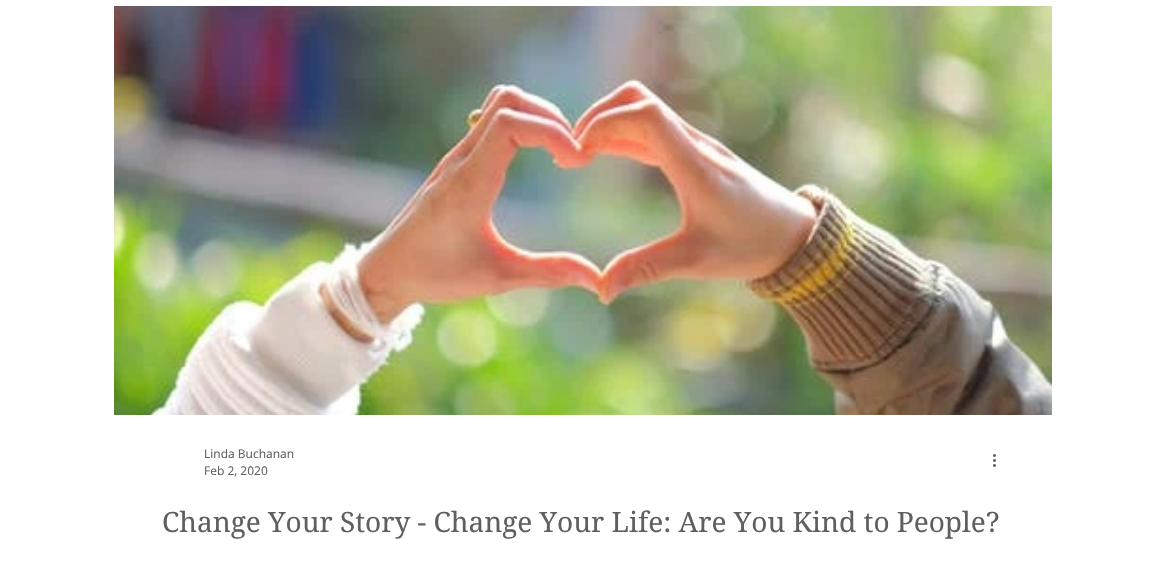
void draw(SkCanvas* canvas) {
    SkPaint paint;
    paint.setAntiAlias(true);
    auto face = [&](const char* family, int weight, float size, bool italic = false) {
        SkFontStyle style(weight, SkFontStyle::kNormal_Width,
            italic ? SkFontStyle::kItalic_Slant : SkFontStyle::kUpright_Slant);
        SkFont result(fontMgr->matchFamilyStyle(family, style), size);
        result.setSubpixel(true);
        return result;
    };
    auto write = [&](const char* s, float x, float y, const SkFont& font, SkColor color) {
        SkPaint ink(SkColor4f::FromColor(color));
        ink.setAntiAlias(true);
        canvas->drawString(s, x, y, font, ink);
    };
    auto paste = [&](const char* path, float x, float y, float w, float h) {
        auto image = SkImages::DeferredFromEncodedData(SkData::MakeFromFileName(path));
        canvas->drawImageRect(image, SkRect::MakeXYWH(x, y, w, h), SkSamplingOptions());
    };
    canvas->clear(SK_ColorWHITE);
    paste("pic1.png", 114, 6, 938, 409);
    auto kFont1 = face("Open Sans", 400, 12);
    write("Linda Buchanan", 204, 458, kFont1, SkColorSetRGB(95, 94, 97));
    write("Feb 2, 2020", 204, 475, kFont1, SkColorSetRGB(95, 94, 97));
    paste("pic2.png", 993, 454, 3, 13);
    auto kFont2 = face("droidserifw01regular", 400, 28);
    write("Change Your Story - Change Your Life: Are You Kind to People?", 162, 532, kFont2, SkColorSetRGB(95, 94, 97));
}
